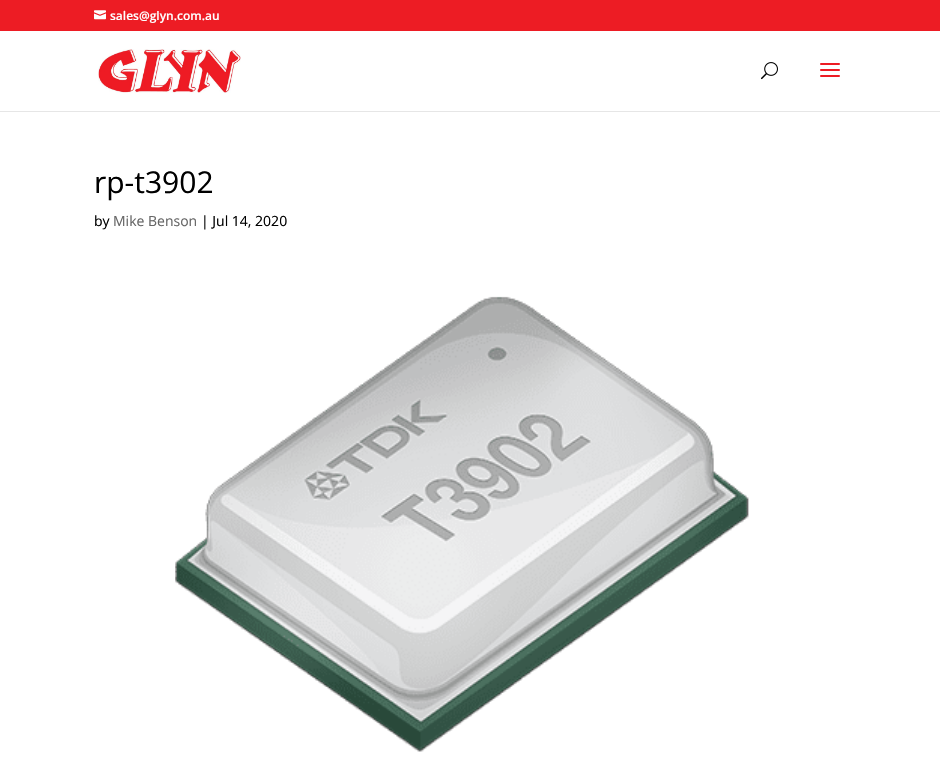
void draw(SkCanvas* canvas) {
    SkPaint paint;
    paint.setAntiAlias(true);
    auto face = [&](const char* family, int weight, float size, bool italic = false) {
        SkFontStyle style(weight, SkFontStyle::kNormal_Width,
            italic ? SkFontStyle::kItalic_Slant : SkFontStyle::kUpright_Slant);
        SkFont result(fontMgr->matchFamilyStyle(family, style), size);
        result.setSubpixel(true);
        return result;
    };
    auto write = [&](const char* s, float x, float y, const SkFont& font, SkColor color) {
        SkPaint ink(SkColor4f::FromColor(color));
        ink.setAntiAlias(true);
        canvas->drawString(s, x, y, font, ink);
    };
    auto block = [&](float x, float y, float w, float h, SkColor color) {
        SkPaint ink(SkColor4f::FromColor(color));
        ink.setAntiAlias(true);
        canvas->drawRect(SkRect::MakeXYWH(x, y, w, h), ink);
    };
    auto paste = [&](const char* path, float x, float y, float w, float h) {
        auto image = SkImages::DeferredFromEncodedData(SkData::MakeFromFileName(path));
        canvas->drawImageRect(image, SkRect::MakeXYWH(x, y, w, h), SkSamplingOptions());
    };
    canvas->clear(SK_ColorWHITE);
    block(0, 0, 940, 31, SkColorSetRGB(237, 28, 36));
    paste("pic1.png", 94, 10, 12, 10);
    auto kFont1 = face("Open Sans", 600, 12);
    write("sales@glyn.com.au", 110, 20, kFont1, SK_ColorWHITE);
    block(0, 111, 940, 1, SkColorSetRGB(230, 230, 230));
    paste("pic2.png", 98, 49, 143, 44);
    paste("pic3.png", 761, 62, 17, 18);
    paste("pic4.png", 820, 63, 20, 14);
    auto kFont2 = face("Open Sans", 400, 30);
    write("rp-t3902", 94, 193, kFont2, SK_ColorBLACK);
    auto kFont3 = face("Open Sans", 400, 14);
    write("by", 94, 226, kFont3, SK_ColorBLACK);
    write("Mike Benson", 113, 226, kFont3, SkColorSetRGB(102, 102, 102));
    write("| Jul 14, 2020", 201, 226, kFont3, SK_ColorBLACK);
    paste("pic5.png", 175, 296, 574, 456);
}
